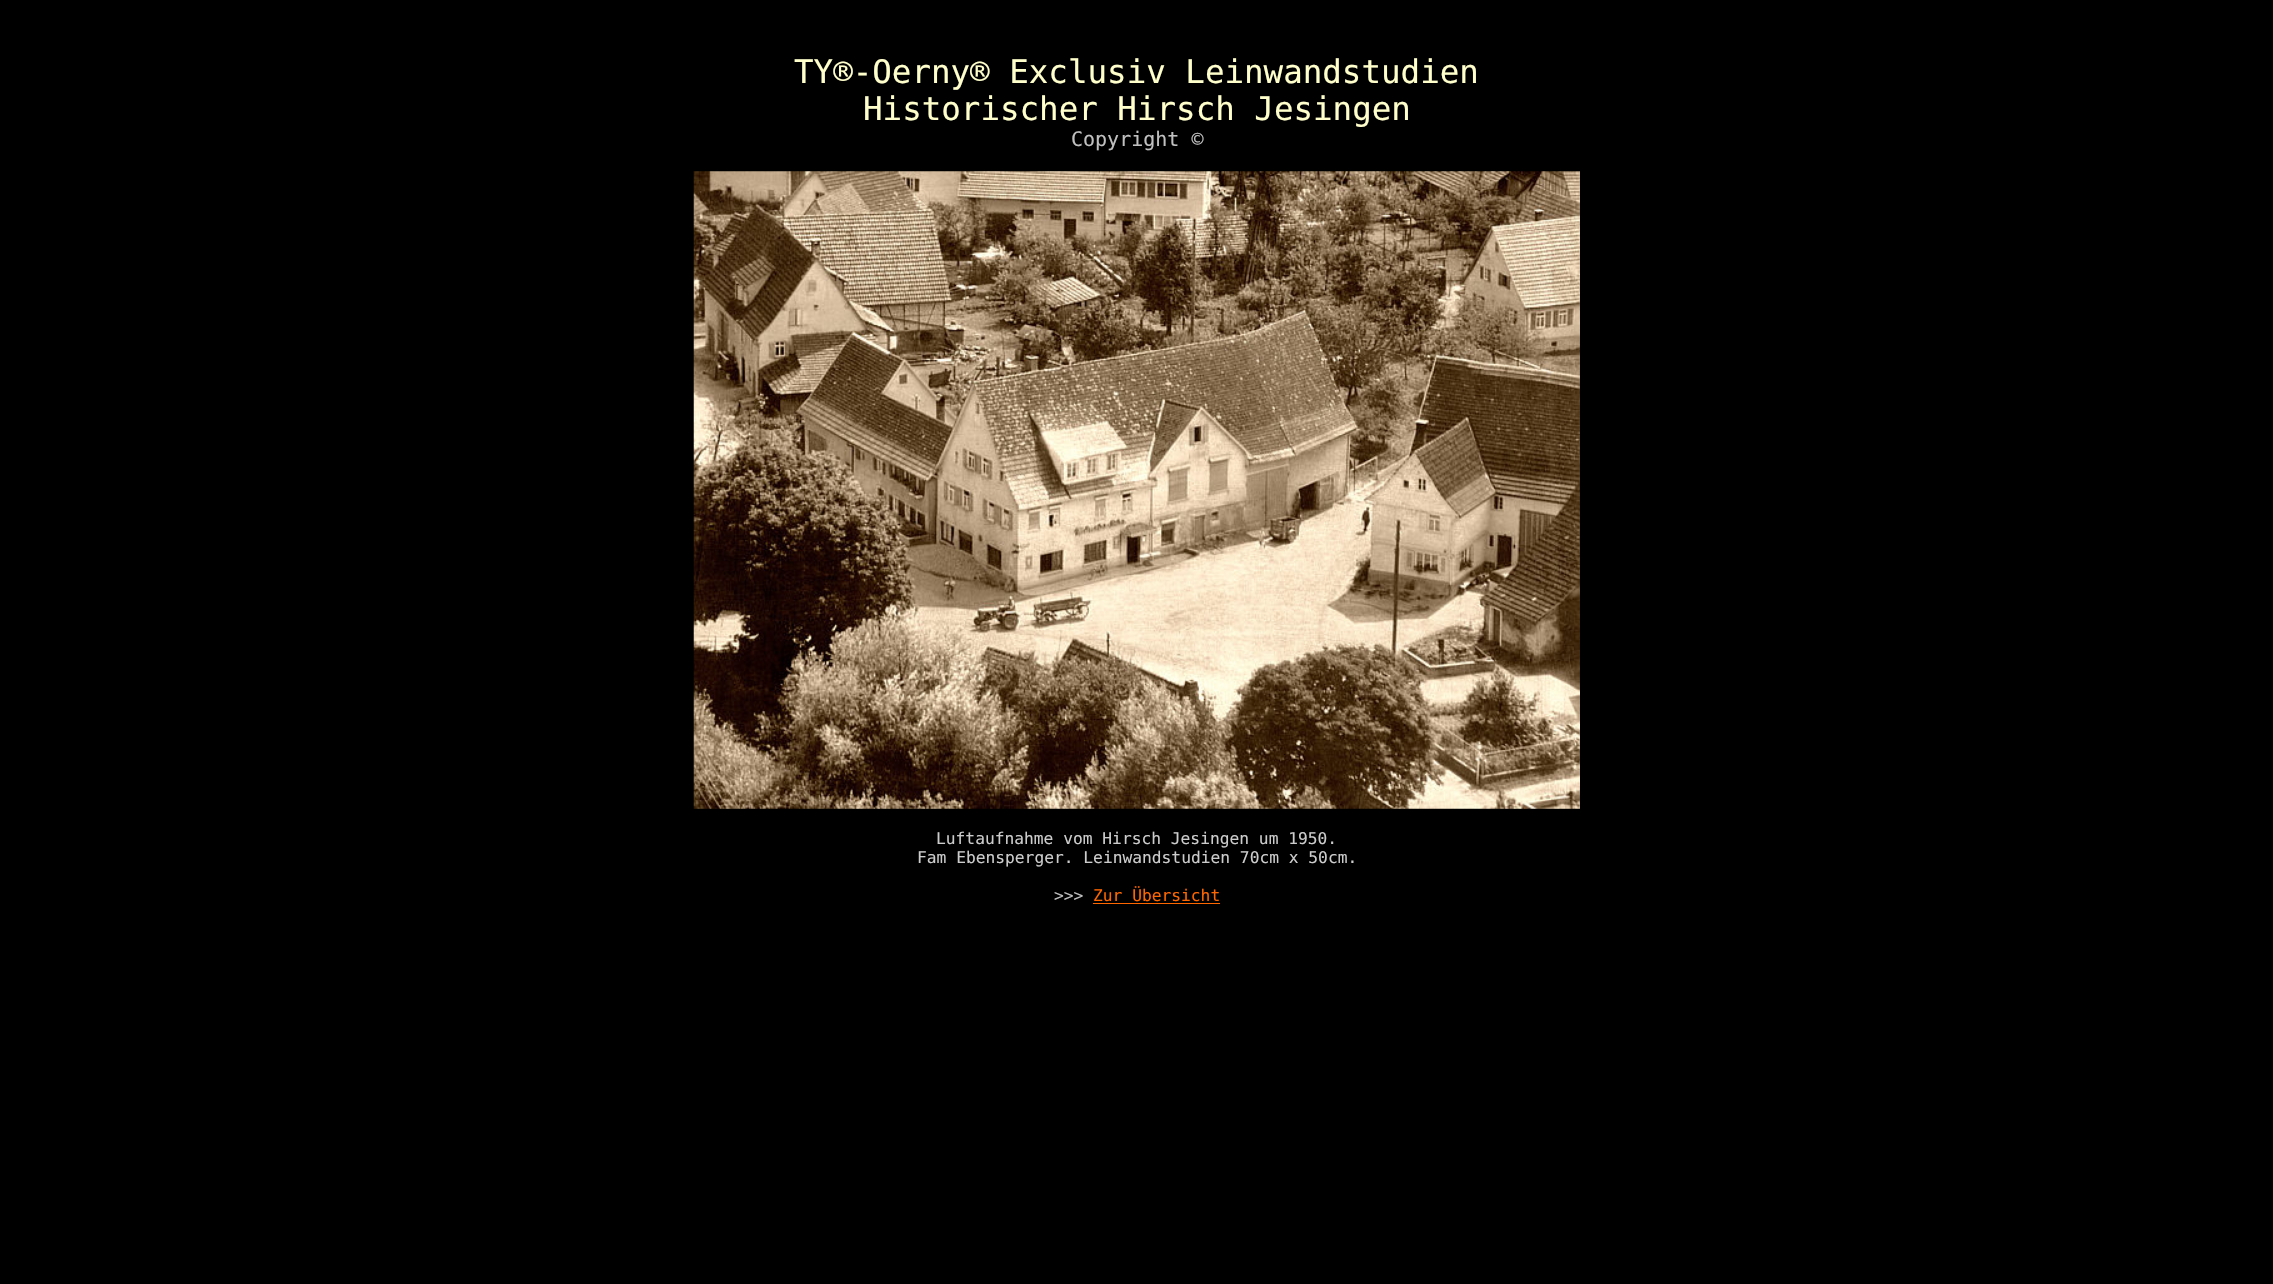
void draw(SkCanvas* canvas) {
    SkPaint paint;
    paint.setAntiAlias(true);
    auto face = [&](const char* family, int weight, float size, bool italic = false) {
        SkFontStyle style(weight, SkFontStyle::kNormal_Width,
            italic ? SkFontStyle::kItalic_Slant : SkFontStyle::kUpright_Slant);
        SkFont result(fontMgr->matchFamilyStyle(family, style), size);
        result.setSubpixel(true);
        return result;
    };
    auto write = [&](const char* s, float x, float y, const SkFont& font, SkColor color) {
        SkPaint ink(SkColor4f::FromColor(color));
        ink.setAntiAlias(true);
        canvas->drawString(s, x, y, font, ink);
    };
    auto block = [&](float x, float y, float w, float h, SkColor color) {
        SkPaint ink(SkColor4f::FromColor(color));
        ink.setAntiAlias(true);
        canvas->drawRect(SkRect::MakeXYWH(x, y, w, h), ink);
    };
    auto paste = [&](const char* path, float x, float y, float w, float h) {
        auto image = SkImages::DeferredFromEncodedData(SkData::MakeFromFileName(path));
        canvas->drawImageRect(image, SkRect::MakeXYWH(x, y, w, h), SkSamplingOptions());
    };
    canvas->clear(SK_ColorBLACK);
    auto kFont1 = face("DejaVu Sans Mono", 400, 32.5f);
    write("TY®-Oerny® Exclusiv Leinwandstudien", 794, 83, kFont1, SkColorSetRGB(255, 255, 204));
    write("Historischer Hirsch Jesingen", 863, 120, kFont1, SkColorSetRGB(255, 255, 204));
    auto kFont2 = face("DejaVu Sans Mono", 400, 20);
    write("Copyright ©", 1071, 146, kFont2, SkColorSetRGB(192, 192, 192));
    paste("pic1.png", 693, 171, 887, 638);
    auto kFont3 = face("DejaVu Sans Mono", 400, 16.25f);
    write("Luftaufnahme vom Hirsch Jesingen um 1950.", 936, 844, kFont3, SkColorSetRGB(204, 204, 204));
    write("Fam Ebensperger. Leinwandstudien 70cm x 50cm.", 917, 863, kFont3, SkColorSetRGB(204, 204, 204));
    write(">>>", 1054, 901, kFont3, SkColorSetRGB(192, 192, 192));
    write("Zur Übersicht", 1093, 901, kFont3, SkColorSetRGB(255, 102, 0));
    block(1093, 903, 127, 1, SkColorSetRGB(255, 102, 0));
}
